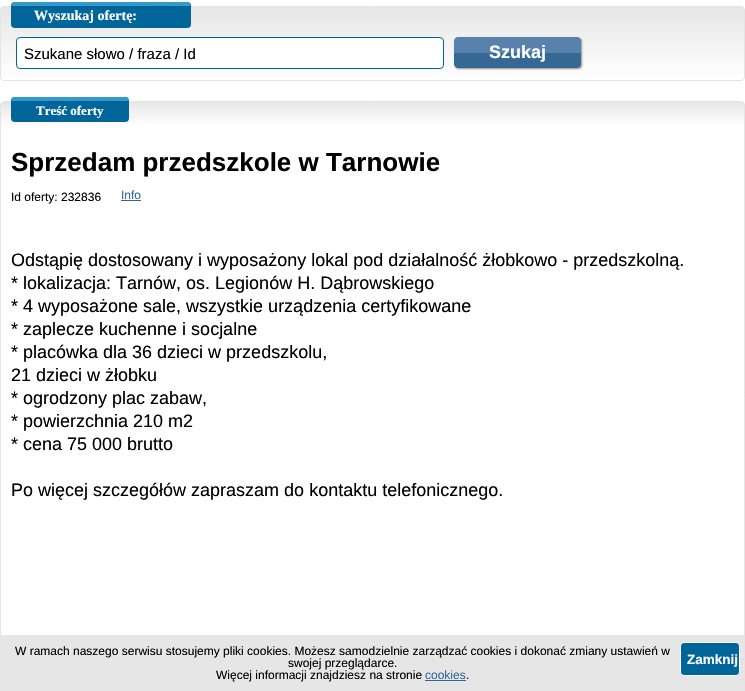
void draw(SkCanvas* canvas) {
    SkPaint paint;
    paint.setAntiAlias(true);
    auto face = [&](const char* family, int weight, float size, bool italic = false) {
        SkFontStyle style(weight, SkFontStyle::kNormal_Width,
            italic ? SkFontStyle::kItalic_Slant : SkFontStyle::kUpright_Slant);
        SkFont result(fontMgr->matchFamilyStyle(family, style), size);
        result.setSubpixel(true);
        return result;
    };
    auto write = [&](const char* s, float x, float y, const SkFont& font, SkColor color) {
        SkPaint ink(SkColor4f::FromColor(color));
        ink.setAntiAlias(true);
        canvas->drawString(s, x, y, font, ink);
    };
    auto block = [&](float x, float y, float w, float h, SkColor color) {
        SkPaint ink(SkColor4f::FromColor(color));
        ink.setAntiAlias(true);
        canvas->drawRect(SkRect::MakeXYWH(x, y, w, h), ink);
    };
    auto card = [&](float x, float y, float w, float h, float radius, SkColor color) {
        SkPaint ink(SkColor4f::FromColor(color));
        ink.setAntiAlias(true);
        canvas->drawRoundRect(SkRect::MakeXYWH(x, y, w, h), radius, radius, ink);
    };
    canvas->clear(SK_ColorWHITE);
    paint.setStyle(SkPaint::kStroke_Style);
    paint.setStrokeWidth(1);
    paint.setColor(SkColorSetRGB(228, 228, 228));
    canvas->drawRoundRect(SkRect::MakeXYWH(0.5f, 6.5f, 744, 74), 3.5f, 3.5f, paint);
    paint.setStyle(SkPaint::kFill_Style);
    {
        const SkColor colors[] = {SkColorSetRGB(230, 230, 230), SK_ColorWHITE};
        const float stops[] = {0, 1};
        const SkPoint ends[] = {{373, 7}, {373, 80}};
        paint.setShader(SkGradientShader::MakeLinear(ends, colors, stops, 2, SkTileMode::kClamp));
        paint.setAlpha(255);
    }
    canvas->drawPath(SkPathBuilder().moveTo(1, 7).lineTo(744, 7).lineTo(744, 76).cubicTo(744, 78, 742, 80, 740, 80).lineTo(5, 80).cubicTo(3, 80, 1, 78, 1, 76).close().detach(), paint);
    card(11, 2, 180, 26, 4, SkColorSetRGB(0, 101, 153));
    paint.setShader(nullptr);
    paint.setColor(SkColorSetRGB(51, 152, 204));
    canvas->drawPath(SkPathBuilder().moveTo(15, 2).lineTo(187, 2).cubicTo(189, 2, 191, 4, 191, 6).lineTo(11, 6).cubicTo(11, 4, 13, 2, 15, 2).close().detach(), paint);
    auto kFont1 = face("Liberation Serif", 700, 14);
    write("Wyszukaj ofertę:", 34, 20, kFont1, SK_ColorWHITE);
    paint.setColor(SK_ColorWHITE);
    canvas->drawRoundRect(SkRect::MakeXYWH(16.5f, 37.5f, 427, 31), 3.5f, 3.5f, paint);
    paint.setStyle(SkPaint::kStroke_Style);
    paint.setColor(SkColorSetRGB(0, 101, 153));
    canvas->drawRoundRect(SkRect::MakeXYWH(16.5f, 37.5f, 427, 31), 3.5f, 3.5f, paint);
    auto kFont2 = face("Liberation Sans", 400, 15);
    write("Szukane słowo / fraza / Id", 24, 59, kFont2, SK_ColorBLACK);
    paint.setStyle(SkPaint::kFill_Style);
    paint.setColor(SkColorSetRGB(147, 147, 147));
    paint.setMaskFilter(SkMaskFilter::MakeBlur(kNormal_SkBlurStyle, 1));
    canvas->drawRoundRect(SkRect::MakeXYWH(455, 38, 127, 31), 4, 4, paint);
    paint.setMaskFilter(nullptr);
    paint.setColor(SkColorSetRGB(88, 130, 172));
    canvas->drawPath(SkPathBuilder().moveTo(458, 37).lineTo(577, 37).cubicTo(579, 37, 581, 39, 581, 41).lineTo(581, 53).lineTo(454, 53).lineTo(454, 41).cubicTo(454, 39, 456, 37, 458, 37).close().detach(), paint);
    paint.setColor(SkColorSetRGB(53, 104, 149));
    canvas->drawPath(SkPathBuilder().moveTo(454, 53).lineTo(581, 53).lineTo(581, 64).cubicTo(581, 66, 579, 68, 577, 68).lineTo(458, 68).cubicTo(456, 68, 454, 66, 454, 64).close().detach(), paint);
    auto kFont3 = face("Liberation Sans", 700, 18);
    write("Szukaj", 489, 58, kFont3, SK_ColorWHITE);
    paint.setStyle(SkPaint::kStroke_Style);
    paint.setColor(SkColorSetRGB(228, 228, 228));
    canvas->drawRoundRect(SkRect::MakeXYWH(0.5f, 101.5f, 744, 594), 3.5f, 3.5f, paint);
    paint.setStyle(SkPaint::kFill_Style);
    {
        const SkColor colors[] = {SkColorSetRGB(230, 230, 230), SK_ColorWHITE};
        const float stops[] = {0, 1};
        const SkPoint ends[] = {{373, 102}, {373, 127}};
        paint.setShader(SkGradientShader::MakeLinear(ends, colors, stops, 2, SkTileMode::kClamp));
        paint.setAlpha(255);
    }
    canvas->drawPath(SkPathBuilder().moveTo(1, 102).lineTo(744, 102).lineTo(744, 123).cubicTo(744, 125, 742, 127, 740, 127).lineTo(5, 127).cubicTo(3, 127, 1, 125, 1, 123).close().detach(), paint);
    card(11, 97, 118, 25, 4, SkColorSetRGB(0, 101, 153));
    paint.setShader(nullptr);
    paint.setColor(SkColorSetRGB(51, 152, 204));
    canvas->drawPath(SkPathBuilder().moveTo(15, 97).lineTo(125, 97).cubicTo(127, 97, 129, 99, 129, 101).lineTo(11, 101).cubicTo(11, 99, 13, 97, 15, 97).close().detach(), paint);
    auto kFont4 = face("Liberation Serif", 700, 13);
    write("Treść oferty", 36, 115, kFont4, SK_ColorWHITE);
    auto kFont5 = face("Liberation Sans", 700, 26);
    write("Sprzedam przedszkole w Tarnowie", 11, 171, kFont5, SK_ColorBLACK);
    auto kFont6 = face("Liberation Sans", 400, 12);
    write("Id oferty: 232836", 11, 201, kFont6, SK_ColorBLACK);
    write("Info", 121, 199, kFont6, SkColorSetRGB(51, 102, 153));
    block(121, 200, 20, 1, SkColorSetRGB(51, 102, 153));
    auto kFont7 = face("Liberation Sans", 400, 18);
    write("Odstąpię dostosowany i wyposażony lokal pod działalność żłobkowo - przedszkolną.", 11, 266, kFont7, SK_ColorBLACK);
    write("* lokalizacja: Tarnów, os. Legionów H. Dąbrowskiego", 11, 289, kFont7, SK_ColorBLACK);
    write("* 4 wyposażone sale, wszystkie urządzenia certyfikowane", 11, 312, kFont7, SK_ColorBLACK);
    write("* zaplecze kuchenne i socjalne", 11, 335, kFont7, SK_ColorBLACK);
    write("* placówka dla 36 dzieci w przedszkolu,", 11, 358, kFont7, SK_ColorBLACK);
    write("21 dzieci w żłobku", 11, 381, kFont7, SK_ColorBLACK);
    write("* ogrodzony plac zabaw,", 11, 404, kFont7, SK_ColorBLACK);
    write("* powierzchnia 210 m2", 11, 427, kFont7, SK_ColorBLACK);
    write("* cena 75 000 brutto", 11, 450, kFont7, SK_ColorBLACK);
    write("Po więcej szczegółów zapraszam do kontaktu telefonicznego.", 11, 496, kFont7, SK_ColorBLACK);
    block(1, 635, 743, 56, SkColorSetRGB(230, 230, 230));
    write("W ramach naszego serwisu stosujemy pliki cookies. Możesz samodzielnie zarządzać cookies i dokonać zmiany ustawień w", 15, 655, kFont6, SK_ColorBLACK);
    write("swojej przeglądarce.", 288, 667, kFont6, SK_ColorBLACK);
    paint.setColor(SkColorSetRGB(0, 101, 153));
    canvas->drawRoundRect(SkRect::MakeXYWH(680.5f, 642.5f, 59, 33), 3.5f, 3.5f, paint);
    paint.setStyle(SkPaint::kStroke_Style);
    paint.setColor(SK_ColorWHITE);
    canvas->drawRoundRect(SkRect::MakeXYWH(680.5f, 642.5f, 59, 33), 3.5f, 3.5f, paint);
    auto kFont8 = face("Liberation Sans", 700, 13.5f);
    write("Zamknij", 687, 664, kFont8, SK_ColorWHITE);
    write("Więcej informacji znajdziesz na stronie", 216, 679, kFont6, SK_ColorBLACK);
    write("cookies", 425, 679, kFont6, SkColorSetRGB(51, 102, 153));
    block(425, 680, 41, 1, SkColorSetRGB(51, 102, 153));
    write(".", 466, 679, kFont6, SK_ColorBLACK);
}
